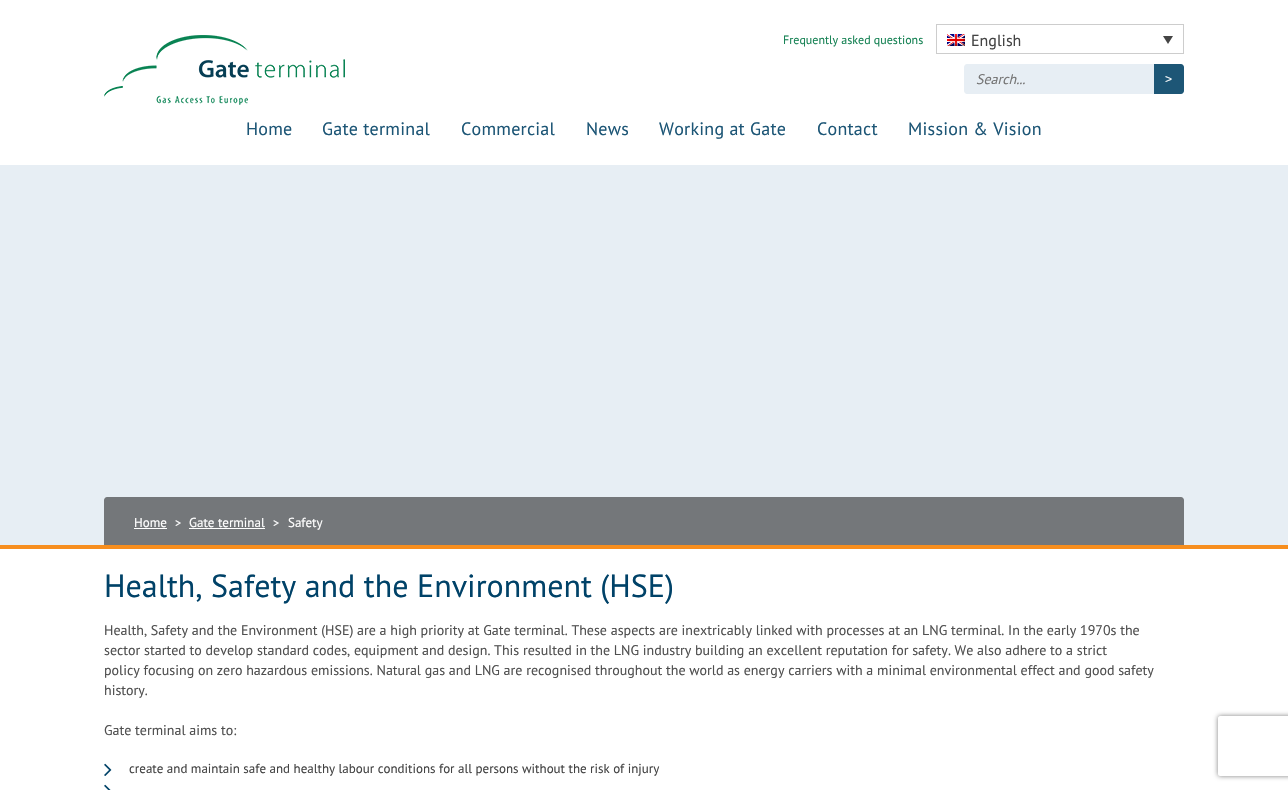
void draw(SkCanvas* canvas) {
    SkPaint paint;
    paint.setAntiAlias(true);
    auto face = [&](const char* family, int weight, float size, bool italic = false) {
        SkFontStyle style(weight, SkFontStyle::kNormal_Width,
            italic ? SkFontStyle::kItalic_Slant : SkFontStyle::kUpright_Slant);
        SkFont result(fontMgr->matchFamilyStyle(family, style), size);
        result.setSubpixel(true);
        return result;
    };
    auto write = [&](const char* s, float x, float y, const SkFont& font, SkColor color) {
        SkPaint ink(SkColor4f::FromColor(color));
        ink.setAntiAlias(true);
        canvas->drawString(s, x, y, font, ink);
    };
    auto writeSpaced = [&](const char* s, float x, float y, const SkFont& font, const SkPaint& ink, float letter, float word) {
        std::vector<SkGlyphID> glyphs(font.countText(s, strlen(s), SkTextEncoding::kUTF8));
        std::vector<float> xs(glyphs.size());
        font.textToGlyphs(s, strlen(s), SkTextEncoding::kUTF8, glyphs);
        font.getXPos(glyphs, xs, x);
        float extra = 0;
        for (size_t i = 0; i < glyphs.size(); i++) {
            xs[i] += extra;
            extra += letter + word * (glyphs[i] == font.unicharToGlyph(' '));
        }
        canvas->drawTextBlob(SkTextBlob::MakeFromPosHGlyphs(glyphs, xs, y, font), 0, 0, ink);
    };
    auto block = [&](float x, float y, float w, float h, SkColor color) {
        SkPaint ink(SkColor4f::FromColor(color));
        ink.setAntiAlias(true);
        canvas->drawRect(SkRect::MakeXYWH(x, y, w, h), ink);
    };
    auto paste = [&](const char* path, float x, float y, float w, float h) {
        auto image = SkImages::DeferredFromEncodedData(SkData::MakeFromFileName(path));
        canvas->drawImageRect(image, SkRect::MakeXYWH(x, y, w, h), SkSamplingOptions());
    };
    canvas->clear(SK_ColorWHITE);
    paste("pic1.png", 104, 35, 241, 70);
    auto kFont1 = face("PT Sans", 400, 12);
    write("Frequently asked questions", 783, 44, kFont1, SkColorSetRGB(22, 130, 84));
    paint.setStyle(SkPaint::kStroke_Style);
    paint.setStrokeWidth(1);
    paint.setColor(SkColorSetRGB(205, 205, 205));
    canvas->drawRect(SkRect::MakeXYWH(936.5f, 24.5f, 247, 29), paint);
    paste("pic2.png", 947, 34, 18, 12);
    auto kFont2 = face("PT Sans", 400, 16);
    write("English", 971, 46, kFont2, SkColorSetRGB(68, 68, 68));
    paint.setStyle(SkPaint::kFill_Style);
    paint.setColor(SkColorSetRGB(68, 68, 68));
    canvas->drawPath(SkPathBuilder().moveTo(1163, 36).lineTo(1173, 36).lineTo(1168, 44).close().detach(), paint);
    paint.setColor(SkColorSetRGB(231, 238, 244));
    canvas->drawPath(SkPathBuilder().moveTo(967, 64).lineTo(1154, 64).lineTo(1154, 94).lineTo(967, 94).cubicTo(965.5f, 94, 964, 92.5f, 964, 91).lineTo(964, 67).cubicTo(964, 65.5f, 965.5f, 64, 967, 64).close().detach(), paint);
    auto kFont3 = face("PT Sans", 400, 14, true);
    write("Search...", 976, 84, kFont3, SkColorSetRGB(117, 117, 117));
    paint.setColor(SkColorSetRGB(29, 86, 118));
    canvas->drawPath(SkPathBuilder().moveTo(1154, 64).lineTo(1181, 64).cubicTo(1182.5f, 64, 1184, 65.5f, 1184, 67).lineTo(1184, 91).cubicTo(1184, 92.5f, 1182.5f, 94, 1181, 94).lineTo(1154, 94).close().detach(), paint);
    auto kFont4 = face("Liberation Sans", 400, 12);
    write(">", 1165, 83, kFont4, SK_ColorWHITE);
    auto kFont5 = face("PT Sans", 400, 18);
    writeSpaced("Home", 246, 135, kFont5, paint, 0.25f, 0);
    writeSpaced("Gate terminal", 322, 135, kFont5, paint, 0.25f, 0);
    writeSpaced("Commercial", 461, 135, kFont5, paint, 0.25f, 0);
    writeSpaced("News", 586, 135, kFont5, paint, 0.25f, 0);
    writeSpaced("Working at Gate", 659, 135, kFont5, paint, 0.25f, 0);
    writeSpaced("Contact", 817, 135, kFont5, paint, 0.25f, 0);
    writeSpaced("Mission & Vision", 908, 135, kFont5, paint, 0.25f, 0);
    block(0, 545, 1288, 4, SkColorSetRGB(247, 142, 30));
    block(0, 165, 1288, 380, SkColorSetRGB(231, 238, 244));
    paint.setColor(SkColorSetRGB(116, 119, 122));
    canvas->drawPath(SkPathBuilder().moveTo(107, 497).lineTo(1181, 497).cubicTo(1182.5f, 497, 1184, 498.5f, 1184, 500).lineTo(1184, 545).lineTo(104, 545).lineTo(104, 500).cubicTo(104, 498.5f, 105.5f, 497, 107, 497).close().detach(), paint);
    auto kFont6 = face("PT Sans", 400, 13);
    write("Home", 134, 527, kFont6, SK_ColorWHITE);
    block(134, 528, 33, 1, SK_ColorWHITE);
    write(">", 175, 527, kFont1, SK_ColorWHITE);
    write("Gate terminal", 189, 527, kFont6, SK_ColorWHITE);
    block(189, 528, 76, 1, SK_ColorWHITE);
    write(">", 273, 527, kFont1, SK_ColorWHITE);
    write("Safety", 288, 527, kFont6, SK_ColorWHITE);
    auto kFont7 = face("PT Sans", 400, 32);
    write("Health, Safety and the Environment (HSE)", 104, 597, kFont7, SkColorSetRGB(0, 66, 104));
    auto kFont8 = face("PT Sans", 400, 14);
    write("Health, Safety and the Environment (HSE) are a high priority at Gate terminal. These aspects are inextricably linked with processes at an LNG terminal. In the early 1970s the", 104, 635, kFont8, SkColorSetRGB(79, 79, 79));
    write("sector started to develop standard codes, equipment and design. This resulted in the LNG industry building an excellent reputation for safety. We also adhere to a strict", 104, 655, kFont8, SkColorSetRGB(79, 79, 79));
    write("policy focusing on zero hazardous emissions. Natural gas and LNG are recognised throughout the world as energy carriers with a minimal environmental effect and good safety", 104, 675, kFont8, SkColorSetRGB(79, 79, 79));
    write("history.", 104, 695, kFont8, SkColorSetRGB(79, 79, 79));
    write("Gate terminal aims to:", 104, 735, kFont8, SkColorSetRGB(79, 79, 79));
    paste("pic3.png", 104, 763, 8, 13);
    write("create and maintain safe and healthy labour conditions for all persons without the risk of injury", 129, 773, kFont6, SkColorSetRGB(68, 68, 68));
    paste("pic4.png", 104, 784, 7, 6);
    canvas->save();
    canvas->clipPath(SkPathBuilder(SkPathFillType::kEvenOdd).moveTo(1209, 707).lineTo(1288, 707).lineTo(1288, 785).lineTo(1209, 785).close().moveTo(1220, 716).lineTo(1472, 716).cubicTo(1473, 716, 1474, 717, 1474, 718).lineTo(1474, 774).cubicTo(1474, 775, 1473, 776, 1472, 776).lineTo(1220, 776).cubicTo(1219, 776, 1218, 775, 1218, 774).lineTo(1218, 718).cubicTo(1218, 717, 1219, 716, 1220, 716).close().detach(), true);
    paint.setColor(SkColorSetRGB(128, 128, 128));
    paint.setMaskFilter(SkMaskFilter::MakeBlur(kNormal_SkBlurStyle, 2.5f));
    canvas->drawRoundRect(SkRect::MakeXYWH(1218, 716, 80, 60), 2, 2, paint);
    paint.setMaskFilter(nullptr);
    canvas->restore();
}
